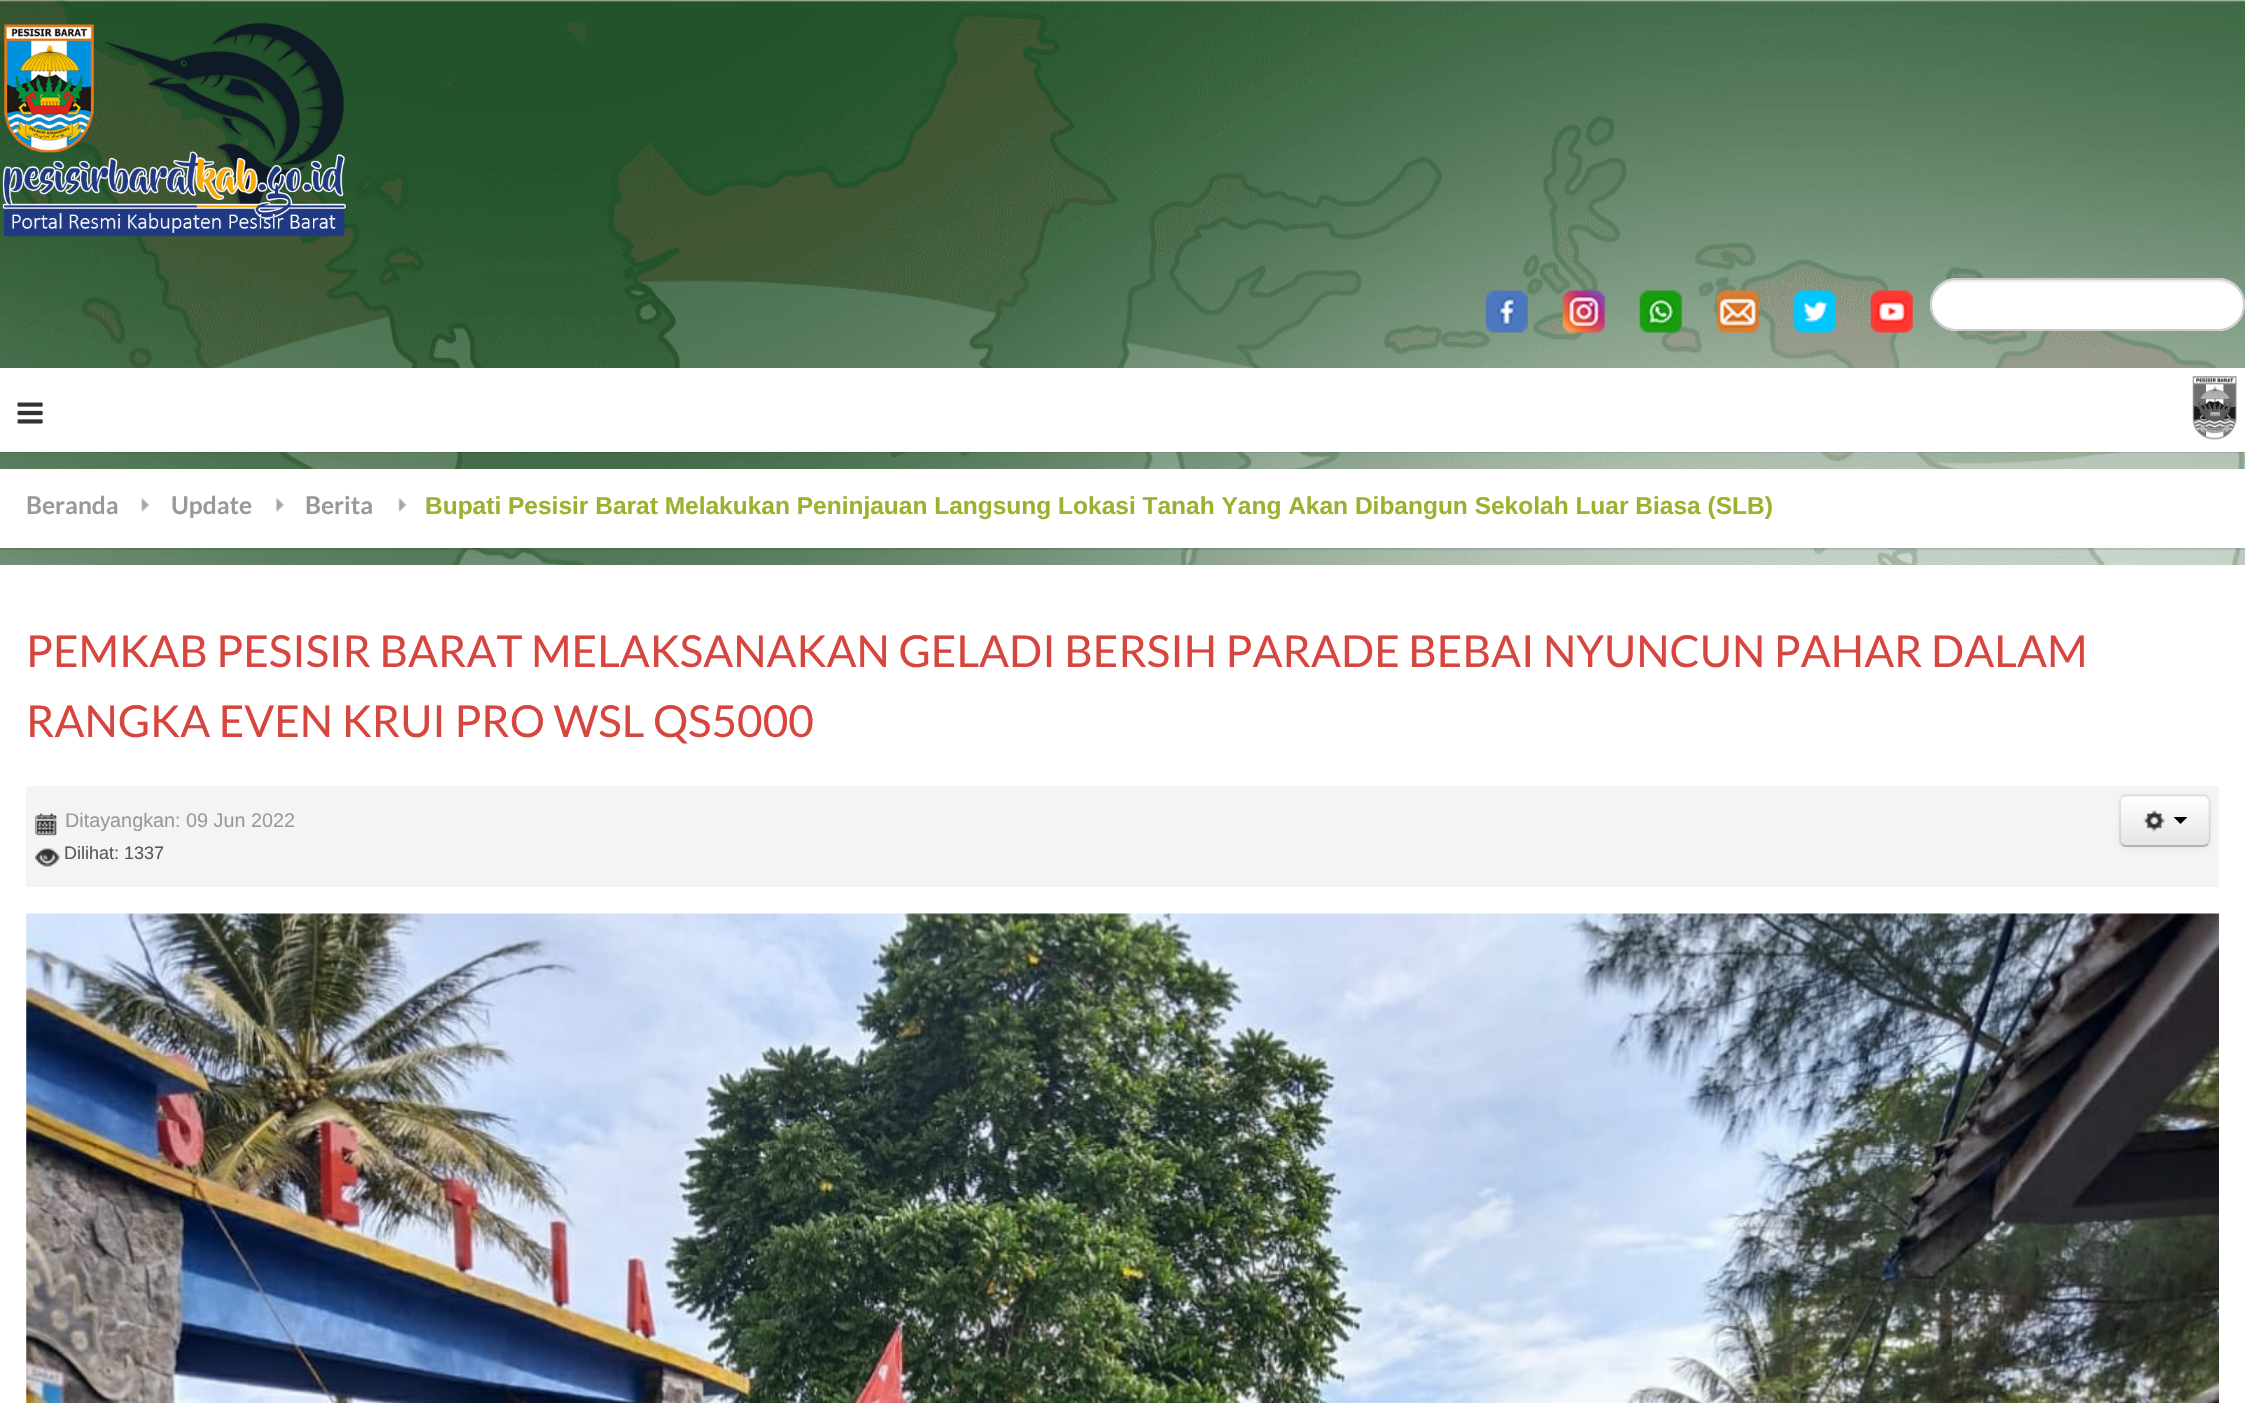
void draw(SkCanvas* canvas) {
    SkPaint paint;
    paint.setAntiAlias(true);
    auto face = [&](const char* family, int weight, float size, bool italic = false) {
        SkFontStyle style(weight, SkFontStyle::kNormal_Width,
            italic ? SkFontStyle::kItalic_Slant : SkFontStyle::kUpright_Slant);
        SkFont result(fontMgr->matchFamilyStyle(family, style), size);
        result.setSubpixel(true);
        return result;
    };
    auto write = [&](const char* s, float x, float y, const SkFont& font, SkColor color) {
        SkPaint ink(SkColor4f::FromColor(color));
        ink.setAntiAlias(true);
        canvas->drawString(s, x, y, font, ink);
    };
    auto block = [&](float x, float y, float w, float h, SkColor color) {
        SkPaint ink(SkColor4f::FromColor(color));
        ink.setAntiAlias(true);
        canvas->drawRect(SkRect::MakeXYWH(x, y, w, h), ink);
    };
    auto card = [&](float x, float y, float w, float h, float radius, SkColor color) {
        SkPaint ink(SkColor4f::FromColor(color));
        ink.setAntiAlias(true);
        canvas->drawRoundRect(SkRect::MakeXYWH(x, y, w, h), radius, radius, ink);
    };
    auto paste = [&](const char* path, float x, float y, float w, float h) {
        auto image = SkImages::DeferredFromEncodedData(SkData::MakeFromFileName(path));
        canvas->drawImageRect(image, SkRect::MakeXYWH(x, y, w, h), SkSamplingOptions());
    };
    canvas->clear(SK_ColorWHITE);
    paste("pic1.png", 0, 0, 2245, 565);
    paste("pic2.png", 2, 22, 344, 215);
    paste("pic3.png", 1485, 290, 43, 43);
    paste("pic4.png", 1562, 290, 43, 43);
    paste("pic5.png", 1639, 290, 43, 43);
    paste("pic6.png", 1716, 290, 43, 43);
    paste("pic7.png", 1793, 290, 43, 43);
    paste("pic8.png", 1870, 290, 43, 43);
    card(1930, 278, 315, 53, 26.5f, SK_ColorWHITE);
    paint.setColor(SkColorSetRGB(236, 236, 236));
    canvas->drawPath(SkPathBuilder().moveTo(1956, 282).lineTo(2219, 282).cubicTo(2233, 282, 2244, 293, 2244, 305).lineTo(2244, 304).cubicTo(2244, 291, 2233, 280, 2220, 280).lineTo(1956, 280).cubicTo(1943, 280, 1932, 291, 1932, 304).lineTo(1932, 305).cubicTo(1932, 293, 1943, 282, 1956, 282).close().detach(), paint);
    paint.setStyle(SkPaint::kStroke_Style);
    paint.setStrokeWidth(2);
    paint.setColor(SkColorSetRGB(204, 204, 204));
    canvas->drawRoundRect(SkRect::MakeXYWH(1931, 279, 313, 51), 25.5f, 25.5f, paint);
    block(0, 452, 2245, 1, SkColorSetARGB(26, 0, 0, 0));
    block(0, 368, 2245, 84, SK_ColorWHITE);
    paste("pic9.png", 17, 402, 26, 22);
    paste("pic10.png", 2192, 376, 45, 64);
    block(0, 548, 2245, 2, SkColorSetARGB(26, 0, 0, 0));
    block(0, 469, 2245, 79, SK_ColorWHITE);
    paste("pic11.png", 141, 498, 9, 14);
    auto kFont1 = face("Lato", 700, 24.5f);
    write("Beranda", 26, 514, kFont1, SkColorSetRGB(153, 153, 153));
    paste("pic12.png", 276, 498, 8, 14);
    write("Update", 171, 514, kFont1, SkColorSetRGB(153, 153, 153));
    paste("pic13.png", 398, 498, 9, 14);
    write("Berita", 305, 514, kFont1, SkColorSetRGB(153, 153, 153));
    auto kFont2 = face("Liberation Sans", 700, 24.5f);
    write("Bupati Pesisir Barat Melakukan Peninjauan Langsung Lokasi Tanah Yang Akan Dibangun Sekolah Luar Biasa (SLB)", 425, 514, kFont2, SkColorSetRGB(159, 175, 48));
    auto kFont3 = face("Lato", 400, 44.1f);
    write("PEMKAB PESISIR BARAT MELAKSANAKAN GELADI BERSIH PARADE BEBAI NYUNCUN PAHAR DALAM", 26, 667, kFont3, SkColorSetRGB(214, 70, 63));
    write("RANGKA EVEN KRUI PRO WSL QS5000", 26, 737, kFont3, SkColorSetRGB(214, 70, 63));
    block(26, 786, 2193, 101, SkColorSetRGB(244, 244, 244));
    paste("pic14.png", 36, 813, 21, 23);
    paste("pic15.png", 35, 814, 20, 21);
    auto kFont4 = face("Liberation Sans", 400, 19.8f);
    write("Ditayangkan: 09 Jun 2022", 65, 827, kFont4, SkColorSetRGB(153, 153, 153));
    paste("pic16.png", 35, 848, 25, 19);
    auto kFont5 = face("Liberation Sans", 400, 18);
    write("Dilihat: 1337", 64, 859, kFont5, SkColorSetRGB(89, 89, 89));
    paint.setStyle(SkPaint::kFill_Style);
    paint.setColor(SkColorSetARGB(13, 0, 0, 0));
    paint.setMaskFilter(SkMaskFilter::MakeBlur(kNormal_SkBlurStyle, 2));
    canvas->drawRoundRect(SkRect::MakeXYWH(2119, 796, 91, 53), 7, 7, paint);
    paint.setMaskFilter(nullptr);
    card(2119, 795, 91, 52, 7, SkColorSetRGB(245, 245, 245));
    canvas->save();
    canvas->clipPath(SkPathBuilder().moveTo(2126, 795).lineTo(2203, 795).cubicTo(2207, 795, 2210, 798, 2210, 802).lineTo(2210, 840).cubicTo(2210, 844, 2207, 847, 2203, 847).lineTo(2126, 847).cubicTo(2122, 847, 2119, 844, 2119, 840).lineTo(2119, 802).cubicTo(2119, 798, 2122, 795, 2126, 795).close().detach(), true);
    {
        const SkColor colors[] = {SK_ColorWHITE, SkColorSetRGB(230, 230, 230)};
        const float stops[] = {0, 1};
        const SkPoint ends[] = {{2165, 796}, {2165, 845}};
        paint.setShader(SkGradientShader::MakeLinear(ends, colors, stops, 2, SkTileMode::kClamp));
        paint.setAlpha(255);
    }
    canvas->drawRect(SkRect::MakeXYWH(2119, 796, 91, 49), paint);
    canvas->restore();
    paint.setShader(nullptr);
    paint.setColor(SkColorSetARGB(51, 255, 255, 255));
    canvas->drawPath(SkPathBuilder().moveTo(2126, 798).lineTo(2190, 798).cubicTo(2211, 798, 2208, 796, 2208, 816).lineTo(2208, 843).cubicTo(2210, 841, 2209, 836, 2209, 834).lineTo(2209, 820).cubicTo(2209, 789, 2213, 796, 2178, 796).lineTo(2139, 796).cubicTo(2131, 796, 2121, 793, 2121, 803).cubicTo(2121, 800, 2123, 798, 2126, 798).close().detach(), paint);
    paint.setStyle(SkPaint::kStroke_Style);
    paint.setStrokeWidth(1.8f);
    paint.setColor(SkColorSetRGB(179, 179, 179));
    canvas->drawPath(SkPathBuilder().moveTo(2207.5f, 844.5f).cubicTo(2206.5f, 845.5f, 2205, 846, 2203, 846).lineTo(2126, 846).cubicTo(2124.5f, 846, 2123, 845.5f, 2122, 844.5f).detach(), paint);
    paint.setColor(SkColorSetARGB(26, 0, 0, 0));
    canvas->drawPath(SkPathBuilder().moveTo(2122, 844.5f).cubicTo(2121, 843, 2120, 841.5f, 2120, 840).lineTo(2120, 801.5f).cubicTo(2120, 800, 2121, 798.5f, 2122, 797).cubicTo(2123, 796, 2124.5f, 795.5f, 2126, 795.5f).lineTo(2203, 795.5f).cubicTo(2205, 795.5f, 2206.5f, 796, 2207.5f, 797).cubicTo(2208.5f, 798.5f, 2209.5f, 800, 2209.5f, 801.5f).lineTo(2209.5f, 840).cubicTo(2209.5f, 841.5f, 2208.5f, 843, 2207.5f, 844.5f).detach(), paint);
    paste("pic17.png", 2143, 810, 23, 22);
    paint.setStyle(SkPaint::kFill_Style);
    paint.setColor(SK_ColorBLACK);
    canvas->drawPath(SkPathBuilder().moveTo(2173.5f, 817).lineTo(2187.5f, 817).lineTo(2180.5f, 824).close().detach(), paint);
    paste("pic18.png", 26, 913, 2193, 490);
}
